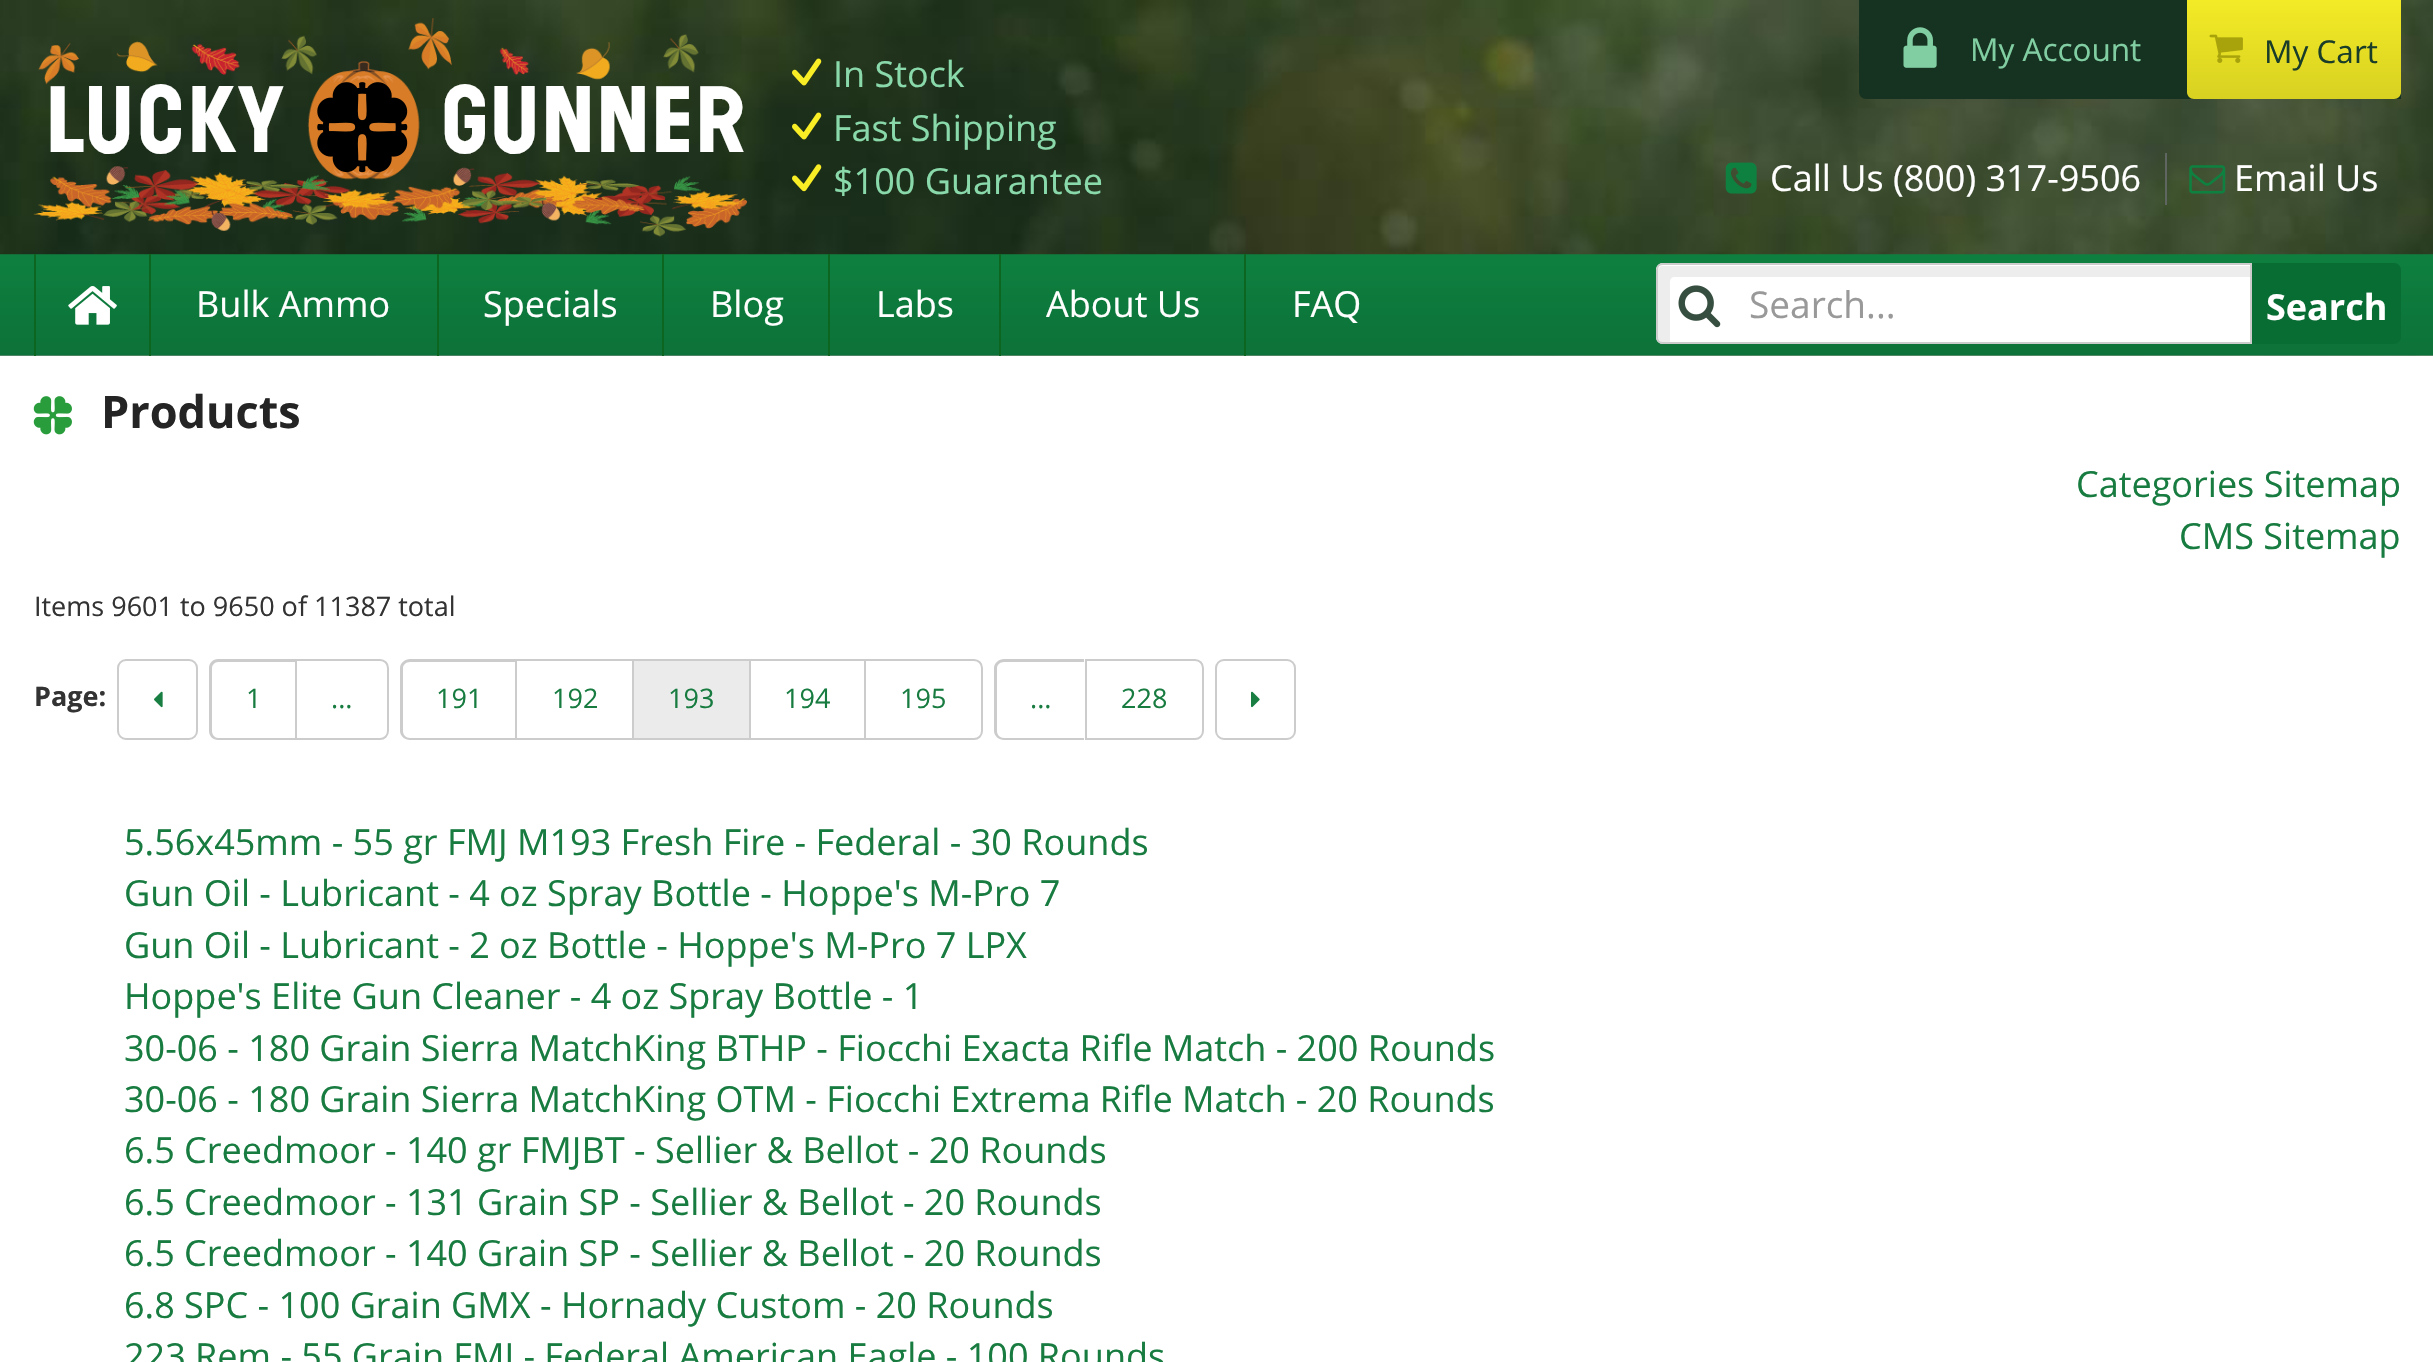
void draw(SkCanvas* canvas) {
    SkPaint paint;
    paint.setAntiAlias(true);
    auto face = [&](const char* family, int weight, float size, bool italic = false) {
        SkFontStyle style(weight, SkFontStyle::kNormal_Width,
            italic ? SkFontStyle::kItalic_Slant : SkFontStyle::kUpright_Slant);
        SkFont result(fontMgr->matchFamilyStyle(family, style), size);
        result.setSubpixel(true);
        return result;
    };
    auto write = [&](const char* s, float x, float y, const SkFont& font, SkColor color) {
        SkPaint ink(SkColor4f::FromColor(color));
        ink.setAntiAlias(true);
        canvas->drawString(s, x, y, font, ink);
    };
    auto block = [&](float x, float y, float w, float h, SkColor color) {
        SkPaint ink(SkColor4f::FromColor(color));
        ink.setAntiAlias(true);
        canvas->drawRect(SkRect::MakeXYWH(x, y, w, h), ink);
    };
    auto paste = [&](const char* path, float x, float y, float w, float h) {
        auto image = SkImages::DeferredFromEncodedData(SkData::MakeFromFileName(path));
        canvas->drawImageRect(image, SkRect::MakeXYWH(x, y, w, h), SkSamplingOptions());
    };
    canvas->clear(SK_ColorWHITE);
    paste("pic1.png", 0, 0, 2433, 356);
    paste("pic2.png", 0, 254, 2433, 102);
    paint.setColor(SkColorSetRGB(22, 51, 34));
    canvas->drawPath(SkPathBuilder().moveTo(1859, 0).lineTo(2401, 0).lineTo(2401, 99).lineTo(1866, 99).cubicTo(1862, 99, 1859, 96, 1859, 92).close().detach(), paint);
    paste("pic3.png", 1903, 27, 34, 41);
    auto kFont1 = face("Open Sans", 400, 31.5f);
    write("My Account", 1970, 61, kFont1, SkColorSetRGB(129, 206, 162));
    {
        const SkColor colors[] = {SkColorSetRGB(243, 235, 38), SkColorSetRGB(216, 209, 33)};
        const float stops[] = {0, 1};
        const SkPoint ends[] = {{2294, 0}, {2294, 99}};
        paint.setShader(SkGradientShader::MakeLinear(ends, colors, stops, 2, SkTileMode::kClamp));
        paint.setAlpha(255);
    }
    canvas->drawPath(SkPathBuilder().moveTo(2187, 0).lineTo(2401, 0).lineTo(2401, 92).cubicTo(2401, 96, 2398, 99, 2394, 99).lineTo(2194, 99).cubicTo(2190, 99, 2187, 96, 2187, 92).close().detach(), paint);
    paste("pic4.png", 2209, 34, 34, 29);
    write("My Cart", 2264, 63, kFont1, SkColorSetRGB(26, 61, 41));
    paste("pic5.png", 33, 18, 714, 219);
    paste("pic6.png", 317, 82, 91, 91);
    auto kFont2 = face("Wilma", 200, 88);
    write("Lucky", 45, 152, kFont2, SK_ColorWHITE);
    paste("pic7.png", 317, 82, 91, 91);
    write("Gunner", 439, 152, kFont2, SK_ColorWHITE);
    paste("pic8.png", 792, 58, 30, 28);
    auto kFont3 = face("Open Sans", 400, 36);
    write("In Stock", 833, 87, kFont3, SkColorSetRGB(137, 217, 171));
    paste("pic9.png", 792, 112, 30, 28);
    write("Fast Shipping", 833, 141, kFont3, SkColorSetRGB(137, 217, 171));
    paste("pic10.png", 792, 164, 30, 28);
    write("$100 Guarantee", 833, 194, kFont3, SkColorSetRGB(137, 217, 171));
    block(2165, 153, 2, 52, SkColorSetRGB(95, 101, 97));
    paste("pic11.png", 1725, 162, 32, 32);
    write("Call Us (800) 317-9506", 1770, 191, kFont3, SK_ColorWHITE);
    paste("pic12.png", 2189, 165, 37, 29);
    write("Email Us", 2234, 191, kFont3, SK_ColorWHITE);
    block(34, 254, 2, 102, SkColorSetRGB(12, 102, 31));
    paste("pic13.png", 68, 286, 49, 39);
    block(149, 254, 2, 102, SkColorSetRGB(12, 102, 31));
    write("Bulk Ammo", 196, 317, kFont3, SK_ColorWHITE);
    block(437, 254, 2, 102, SkColorSetRGB(12, 102, 31));
    write("Specials", 483, 317, kFont3, SK_ColorWHITE);
    block(662, 254, 2, 102, SkColorSetRGB(12, 102, 31));
    write("Blog", 710, 317, kFont3, SK_ColorWHITE);
    block(828, 254, 2, 102, SkColorSetRGB(12, 102, 31));
    write("Labs", 876, 317, kFont3, SK_ColorWHITE);
    block(999, 254, 2, 102, SkColorSetRGB(12, 102, 31));
    write("About Us", 1046, 317, kFont3, SK_ColorWHITE);
    block(1244, 254, 2, 102, SkColorSetRGB(12, 102, 31));
    write("FAQ", 1292, 317, kFont3, SK_ColorWHITE);
    paint.setShader(nullptr);
    paint.setColor(SK_ColorWHITE);
    canvas->drawPath(SkPathBuilder().moveTo(1663, 263).lineTo(2252, 263).lineTo(2252, 344).lineTo(1663, 344).cubicTo(1659, 344, 1656, 341, 1656, 337).lineTo(1656, 270).cubicTo(1656, 266, 1659, 263, 1663, 263).close().detach(), paint);
    paint.setColor(SkColorSetRGB(237, 237, 237));
    canvas->drawPath(SkPathBuilder().moveTo(1674, 277).lineTo(2250, 277).lineTo(2250, 266).lineTo(1663, 266).cubicTo(1660, 266, 1658, 268, 1658, 271).lineTo(1658, 337).cubicTo(1658, 340, 1660, 342, 1663, 342).lineTo(1670, 342).lineTo(1670, 281).cubicTo(1670, 279, 1672, 277, 1674, 277).close().detach(), paint);
    paint.setStyle(SkPaint::kStroke_Style);
    paint.setStrokeWidth(2);
    paint.setColor(SkColorSetRGB(204, 204, 204));
    canvas->drawPath(SkPathBuilder().moveTo(1663, 264).lineTo(2251, 264).lineTo(2251, 343).lineTo(1663, 343).cubicTo(1659.5f, 343, 1657, 340.5f, 1657, 337).lineTo(1657, 270).cubicTo(1657, 266.5f, 1659.5f, 264, 1663, 264).close().detach(), paint);
    paste("pic14.png", 1678, 285, 43, 43);
    auto kFont4 = face("Open Sans", 400, 37);
    write("Search...", 1749, 318, kFont4, SkColorSetRGB(153, 153, 153));
    paint.setStyle(SkPaint::kFill_Style);
    paint.setColor(SkColorSetRGB(8, 109, 51));
    canvas->drawPath(SkPathBuilder().moveTo(2252, 263).lineTo(2394, 263).cubicTo(2398, 263, 2401, 266, 2401, 270).lineTo(2401, 337).cubicTo(2401, 341, 2398, 344, 2394, 344).lineTo(2252, 344).close().detach(), paint);
    auto kFont5 = face("Open Sans", 700, 36);
    write("Search", 2266, 320, kFont5, SK_ColorWHITE);
    paste("pic15.png", 33, 396, 39, 39);
    auto kFont6 = face("Open Sans", 700, 45);
    write("Products", 101, 428, kFont6, SkColorSetRGB(36, 36, 36));
    write("Categories Sitemap", 2076, 497, kFont3, SkColorSetRGB(24, 124, 65));
    write("CMS Sitemap", 2179, 549, kFont3, SkColorSetRGB(24, 124, 65));
    auto kFont7 = face("Open Sans", 400, 27);
    write("Items 9601 to 9650 of 11387 total", 34, 616, kFont7, SkColorSetRGB(51, 51, 51));
    auto kFont8 = face("Open Sans", 700, 27);
    write("Page:", 34, 706, kFont8, SkColorSetRGB(51, 51, 51));
    paint.setStyle(SkPaint::kStroke_Style);
    paint.setColor(SkColorSetRGB(204, 204, 204));
    canvas->drawRoundRect(SkRect::MakeXYWH(118, 660, 79, 79), 8, 8, paint);
    paste("pic16.png", 154, 691, 9, 17);
    paint.setStyle(SkPaint::kFill_Style);
    canvas->drawPath(SkPathBuilder(SkPathFillType::kEvenOdd).moveTo(218, 659).lineTo(295, 659).lineTo(295, 740).lineTo(218, 740).cubicTo(213, 740, 209, 736, 209, 731).lineTo(209, 668).cubicTo(209, 663, 213, 659, 218, 659).close().moveTo(218, 662).lineTo(295, 662).lineTo(295, 738).lineTo(218, 738).cubicTo(215, 738, 212, 735, 212, 731).lineTo(212, 668).cubicTo(212, 665, 215, 662, 218, 662).close().detach(), paint);
    write("1", 246, 708, kFont7, SkColorSetRGB(24, 124, 65));
    paint.setStyle(SkPaint::kStroke_Style);
    canvas->drawPath(SkPathBuilder().moveTo(296, 660).lineTo(380, 660).cubicTo(384.5f, 660, 388, 663.5f, 388, 668).lineTo(388, 731).cubicTo(388, 735.5f, 384.5f, 739, 380, 739).lineTo(296, 739).close().detach(), paint);
    write("...", 331, 708, kFont7, SkColorSetRGB(24, 124, 65));
    paint.setStyle(SkPaint::kFill_Style);
    canvas->drawPath(SkPathBuilder(SkPathFillType::kEvenOdd).moveTo(410, 659).lineTo(515, 659).lineTo(515, 740).lineTo(410, 740).cubicTo(405, 740, 400, 736, 400, 731).lineTo(400, 668).cubicTo(400, 663, 405, 659, 410, 659).close().moveTo(410, 662).lineTo(515, 662).lineTo(515, 738).lineTo(410, 738).cubicTo(406, 738, 403, 735, 403, 731).lineTo(403, 668).cubicTo(403, 665, 406, 662, 410, 662).close().detach(), paint);
    write("191", 436, 708, kFont7, SkColorSetRGB(24, 124, 65));
    block(515, 659, 349, 2, SkColorSetRGB(204, 204, 204));
    block(515, 738, 349, 2, SkColorSetRGB(204, 204, 204));
    block(515, 659, 2, 81, SkColorSetRGB(204, 204, 204));
    write("192", 552, 708, kFont7, SkColorSetRGB(24, 124, 65));
    block(634, 661, 115, 77, SkColorSetRGB(235, 235, 235));
    block(632, 659, 2, 81, SkColorSetRGB(204, 204, 204));
    write("193", 668, 708, kFont7, SkColorSetRGB(24, 124, 65));
    block(749, 659, 2, 81, SkColorSetRGB(204, 204, 204));
    write("194", 784, 708, kFont7, SkColorSetRGB(24, 124, 65));
    paint.setStyle(SkPaint::kStroke_Style);
    canvas->drawPath(SkPathBuilder().moveTo(865, 660).lineTo(974, 660).cubicTo(978.5f, 660, 982, 663.5f, 982, 668).lineTo(982, 731).cubicTo(982, 735.5f, 978.5f, 739, 974, 739).lineTo(865, 739).close().detach(), paint);
    write("195", 900, 708, kFont7, SkColorSetRGB(24, 124, 65));
    paint.setStyle(SkPaint::kFill_Style);
    canvas->drawPath(SkPathBuilder(SkPathFillType::kEvenOdd).moveTo(1004, 659).lineTo(1084, 659).lineTo(1084, 740).lineTo(1004, 740).cubicTo(999, 740, 994, 736, 994, 731).lineTo(994, 668).cubicTo(994, 663, 999, 659, 1004, 659).close().moveTo(1004, 662).lineTo(1084, 662).lineTo(1084, 738).lineTo(1004, 738).cubicTo(1000, 738, 997, 735, 997, 731).lineTo(997, 668).cubicTo(997, 665, 1000, 662, 1004, 662).close().detach(), paint);
    write("...", 1030, 708, kFont7, SkColorSetRGB(24, 124, 65));
    paint.setStyle(SkPaint::kStroke_Style);
    canvas->drawPath(SkPathBuilder().moveTo(1086, 660).lineTo(1195, 660).cubicTo(1199.5f, 660, 1203, 663.5f, 1203, 668).lineTo(1203, 731).cubicTo(1203, 735.5f, 1199.5f, 739, 1195, 739).lineTo(1086, 739).close().detach(), paint);
    write("228", 1121, 708, kFont7, SkColorSetRGB(24, 124, 65));
    canvas->drawRoundRect(SkRect::MakeXYWH(1216, 660, 79, 79), 8, 8, paint);
    paste("pic17.png", 1251, 691, 9, 17);
    write("5.56x45mm - 55 gr FMJ M193 Fresh Fire - Federal - 30 Rounds", 124, 855, kFont3, SkColorSetRGB(24, 124, 65));
    write("Gun Oil - Lubricant - 4 oz Spray Bottle - Hoppe's M-Pro 7", 124, 906, kFont3, SkColorSetRGB(24, 124, 65));
    write("Gun Oil - Lubricant - 2 oz Bottle - Hoppe's M-Pro 7 LPX", 124, 958, kFont3, SkColorSetRGB(24, 124, 65));
    write("Hoppe's Elite Gun Cleaner - 4 oz Spray Bottle - 1", 124, 1009, kFont3, SkColorSetRGB(24, 124, 65));
    write("30-06 - 180 Grain Sierra MatchKing BTHP - Fiocchi Exacta Rifle Match - 200 Rounds", 124, 1061, kFont3, SkColorSetRGB(24, 124, 65));
    write("30-06 - 180 Grain Sierra MatchKing OTM - Fiocchi Extrema Rifle Match - 20 Rounds", 124, 1112, kFont3, SkColorSetRGB(24, 124, 65));
    write("6.5 Creedmoor - 140 gr FMJBT - Sellier & Bellot - 20 Rounds", 124, 1163, kFont3, SkColorSetRGB(24, 124, 65));
    write("6.5 Creedmoor - 131 Grain SP - Sellier & Bellot - 20 Rounds", 124, 1215, kFont3, SkColorSetRGB(24, 124, 65));
    write("6.5 Creedmoor - 140 Grain SP - Sellier & Bellot - 20 Rounds", 124, 1266, kFont3, SkColorSetRGB(24, 124, 65));
    write("6.8 SPC - 100 Grain GMX - Hornady Custom - 20 Rounds", 124, 1318, kFont3, SkColorSetRGB(24, 124, 65));
    write("223 Rem - 55 Grain FMJ - Federal American Eagle - 100 Rounds", 124, 1369, kFont3, SkColorSetRGB(24, 124, 65));
}
